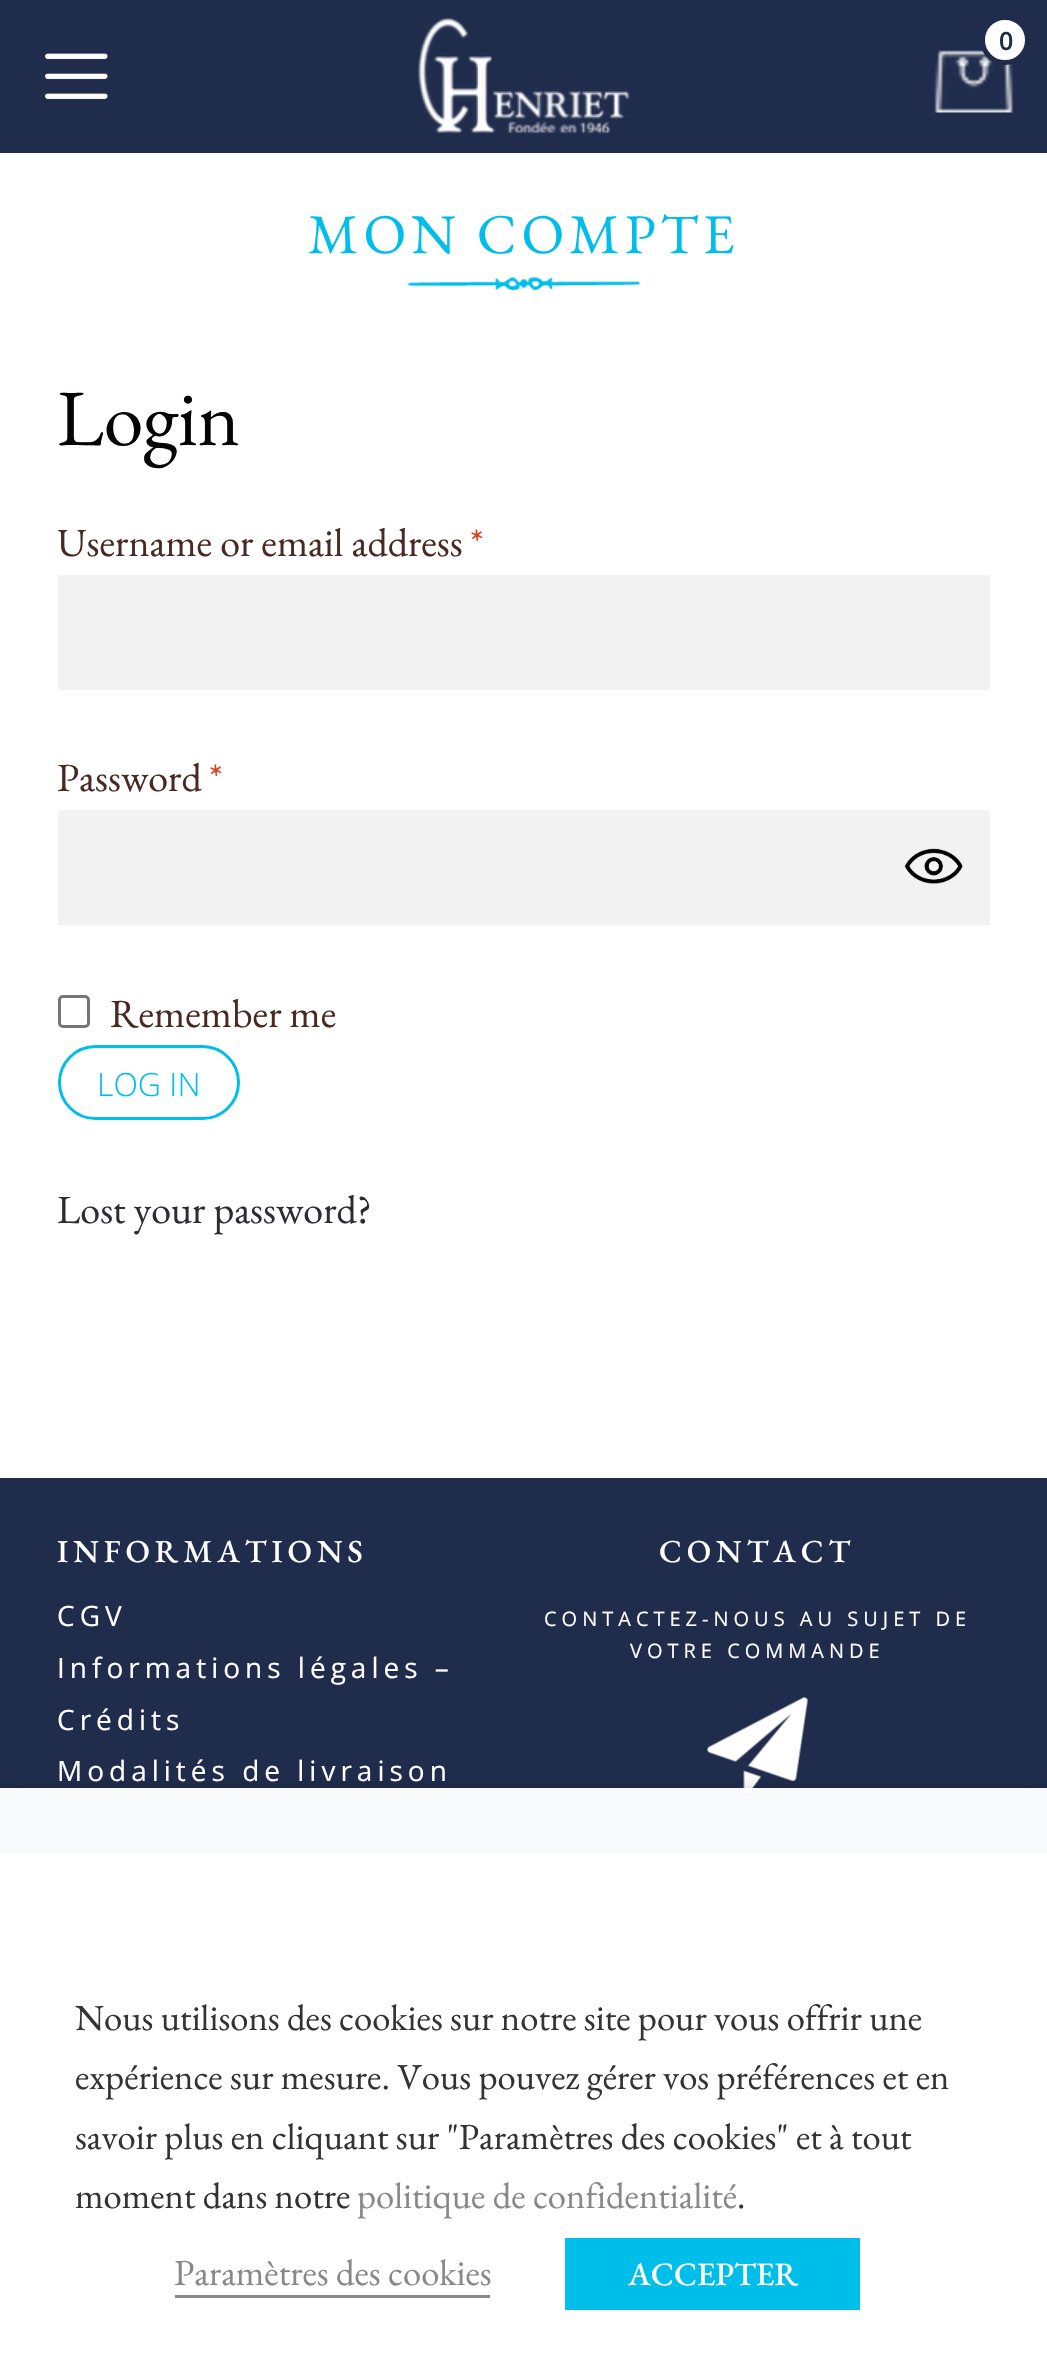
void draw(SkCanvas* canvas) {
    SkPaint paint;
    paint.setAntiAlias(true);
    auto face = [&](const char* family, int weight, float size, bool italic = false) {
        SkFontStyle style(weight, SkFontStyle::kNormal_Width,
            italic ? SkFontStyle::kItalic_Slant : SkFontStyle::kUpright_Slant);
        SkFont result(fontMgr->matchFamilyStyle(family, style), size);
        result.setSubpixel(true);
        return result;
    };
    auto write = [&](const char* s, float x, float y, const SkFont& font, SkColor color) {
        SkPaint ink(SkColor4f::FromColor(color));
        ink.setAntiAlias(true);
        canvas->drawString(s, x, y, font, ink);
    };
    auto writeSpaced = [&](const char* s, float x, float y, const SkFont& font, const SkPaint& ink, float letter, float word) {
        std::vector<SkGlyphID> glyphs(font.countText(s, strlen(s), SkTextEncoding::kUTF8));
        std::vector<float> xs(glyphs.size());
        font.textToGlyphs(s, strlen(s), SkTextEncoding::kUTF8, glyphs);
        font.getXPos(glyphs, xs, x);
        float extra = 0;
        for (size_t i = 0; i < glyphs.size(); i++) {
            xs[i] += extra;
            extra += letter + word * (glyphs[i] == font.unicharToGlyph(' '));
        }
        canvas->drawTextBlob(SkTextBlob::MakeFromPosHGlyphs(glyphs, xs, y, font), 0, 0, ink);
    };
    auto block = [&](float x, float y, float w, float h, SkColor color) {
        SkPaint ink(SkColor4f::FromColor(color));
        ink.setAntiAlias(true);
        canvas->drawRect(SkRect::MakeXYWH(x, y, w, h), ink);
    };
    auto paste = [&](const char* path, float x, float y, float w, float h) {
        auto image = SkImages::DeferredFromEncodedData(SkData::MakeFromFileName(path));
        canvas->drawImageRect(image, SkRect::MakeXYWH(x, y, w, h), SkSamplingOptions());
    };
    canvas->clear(SK_ColorWHITE);
    block(0, 0, 1047, 153, SkColorSetRGB(32, 44, 76));
    paste("pic1.png", 418, 18, 212, 116);
    paste("pic2.png", 934, 50, 80, 63);
    paint.setColor(SK_ColorWHITE);
    canvas->drawCircle(1005, 40, 22.5f, paint);
    paint.setStyle(SkPaint::kStroke_Style);
    paint.setStrokeWidth(5);
    paint.setColor(SkColorSetRGB(32, 44, 76));
    canvas->drawCircle(1005, 40, 22.5f, paint);
    auto kFont1 = face("Open Sans", 600, 25);
    paint.setStyle(SkPaint::kFill_Style);
    writeSpaced("0", 999, 50, kFont1, paint, -2, 0);
    paste("pic3.png", 45, 53, 63, 47);
    auto kFont2 = face("EB Garamond", 400, 56);
    paint.setColor(SkColorSetRGB(0, 190, 234));
    writeSpaced("MON COMPTE", 308, 253, kFont2, paint, 5, 0);
    paste("pic4.png", 407, 277, 233, 13);
    auto kFont3 = face("EB Garamond", 400, 80);
    write("Login", 57, 445, kFont3, SkColorSetRGB(4, 2, 2));
    auto kFont4 = face("EB Garamond", 400, 40);
    write("Username or email address", 57, 556, kFont4, SkColorSetRGB(73, 41, 35));
    write("*", 470, 556, kFont4, SkColorSetRGB(226, 64, 28));
    block(58, 575, 932, 115, SkColorSetRGB(242, 242, 242));
    write("Password", 57, 791, kFont4, SkColorSetRGB(73, 41, 35));
    write("*", 209, 791, kFont4, SkColorSetRGB(226, 64, 28));
    block(58, 810, 932, 115, SkColorSetRGB(242, 242, 242));
    paste("pic5.png", 904, 848, 59, 36);
    paint.setStyle(SkPaint::kStroke_Style);
    paint.setStrokeWidth(3);
    paint.setColor(SkColorSetRGB(118, 118, 118));
    canvas->drawRoundRect(SkRect::MakeXYWH(59.5f, 996.5f, 29, 30), 3.5f, 3.5f, paint);
    write("Remember me", 110, 1027, kFont4, SkColorSetRGB(73, 41, 35));
    paint.setColor(SkColorSetRGB(0, 190, 234));
    canvas->drawRoundRect(SkRect::MakeXYWH(59.5f, 1046.5f, 179, 72), 36, 36, paint);
    auto kFont5 = face("Open Sans", 300, 32);
    write("LOG IN", 97, 1096, kFont5, SkColorSetRGB(0, 190, 234));
    write("Lost your password?", 57, 1223, kFont4, SkColorSetRGB(44, 45, 51));
    block(0, 1478, 1047, 375, SkColorSetRGB(32, 44, 76));
    auto kFont6 = face("EB Garamond", 500, 32);
    paint.setStyle(SkPaint::kFill_Style);
    paint.setColor(SK_ColorWHITE);
    writeSpaced("INFORMATIONS", 57, 1562, kFont6, paint, 5, 0);
    auto kFont7 = face("Open Sans", 400, 28);
    writeSpaced("CGV", 57, 1626, kFont7, paint, 5, 0);
    writeSpaced("Informations légales –", 57, 1678, kFont7, paint, 5, 0);
    writeSpaced("Crédits", 57, 1730, kFont7, paint, 5, 0);
    writeSpaced("Modalités de livraison", 57, 1781, kFont7, paint, 5, 0);
    writeSpaced("CONTACT", 659, 1562, kFont6, paint, 5, 0);
    auto kFont8 = face("Open Sans", 400, 20);
    writeSpaced("CONTACTEZ-NOUS AU SUJET DE", 544, 1626, kFont8, paint, 5, 0);
    writeSpaced("VOTRE COMMANDE", 630, 1658, kFont8, paint, 5, 0);
    paste("pic6.png", 707, 1697, 101, 97);
    canvas->save();
    canvas->clipRect(SkRect::MakeXYWH(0, 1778, 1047, 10));
    paint.setColor(SkColorSetARGB(128, 0, 0, 0));
    paint.setMaskFilter(SkMaskFilter::MakeBlur(kNormal_SkBlurStyle, 12.5f));
    canvas->drawRect(SkRect::MakeXYWH(0, 1800, 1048, 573), paint);
    paint.setMaskFilter(nullptr);
    canvas->restore();
    block(0, 1788, 1047, 65, SkColorSetARGB(247, 255, 255, 255));
    auto kFont9 = face("EB Garamond", 400, 36.7f);
    write("Nous utilisons des cookies sur notre site pour vous offrir une", 75, 2030, kFont9, SkColorSetRGB(51, 51, 51));
    write("expérience sur mesure. Vous pouvez gérer vos préférences et en", 75, 2089, kFont9, SkColorSetRGB(51, 51, 51));
    write("savoir plus en cliquant sur \"Paramètres des cookies\" et à tout", 75, 2149, kFont9, SkColorSetRGB(51, 51, 51));
    write("moment dans notre", 75, 2208, kFont9, SkColorSetRGB(51, 51, 51));
    write("politique de confidentialité", 357, 2208, kFont9, SkColorSetRGB(137, 136, 136));
    write(".", 737, 2208, kFont9, SkColorSetRGB(51, 51, 51));
    write("Paramètres des cookies", 174, 2285, kFont9, SkColorSetRGB(137, 136, 136));
    block(175, 2295, 315, 3, SkColorSetRGB(137, 136, 136));
    block(565, 2238, 295, 72, SkColorSetRGB(0, 190, 234));
    auto kFont10 = face("EB Garamond", 500, 32.5f);
    write("ACCEPTER", 628, 2285, kFont10, SK_ColorWHITE);
}
